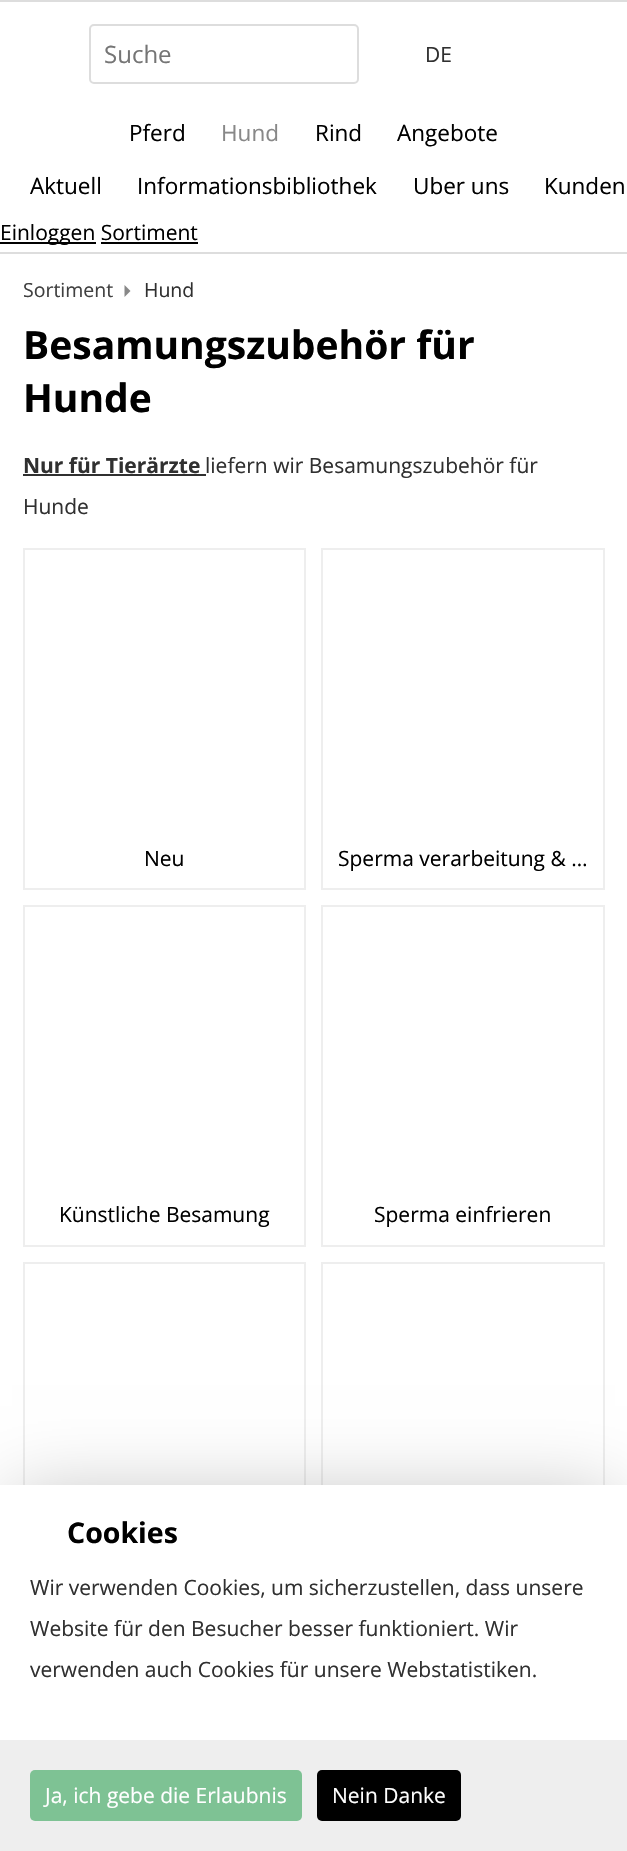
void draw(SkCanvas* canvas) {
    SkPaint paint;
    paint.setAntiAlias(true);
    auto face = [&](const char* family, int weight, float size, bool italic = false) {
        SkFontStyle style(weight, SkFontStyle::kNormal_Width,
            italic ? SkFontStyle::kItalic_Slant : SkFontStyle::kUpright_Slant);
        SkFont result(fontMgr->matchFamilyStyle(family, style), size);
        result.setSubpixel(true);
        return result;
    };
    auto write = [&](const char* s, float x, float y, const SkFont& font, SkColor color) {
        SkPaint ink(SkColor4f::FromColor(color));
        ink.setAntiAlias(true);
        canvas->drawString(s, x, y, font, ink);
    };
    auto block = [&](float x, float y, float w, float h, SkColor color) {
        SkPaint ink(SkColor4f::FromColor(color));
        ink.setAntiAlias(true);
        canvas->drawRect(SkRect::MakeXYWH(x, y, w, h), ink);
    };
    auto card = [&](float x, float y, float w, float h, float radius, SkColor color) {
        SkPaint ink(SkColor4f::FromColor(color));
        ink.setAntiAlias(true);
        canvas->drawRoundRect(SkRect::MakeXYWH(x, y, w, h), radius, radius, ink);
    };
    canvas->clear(SK_ColorWHITE);
    block(0, 0, 627, 2, SkColorSetRGB(221, 221, 221));
    block(0, 252, 627, 2, SkColorSetRGB(221, 221, 221));
    paint.setStyle(SkPaint::kStroke_Style);
    paint.setStrokeWidth(2);
    paint.setColor(SkColorSetRGB(221, 221, 221));
    canvas->drawRoundRect(SkRect::MakeXYWH(90, 25, 268, 58), 4, 4, paint);
    auto kFont1 = face("Open Sans", 400, 24);
    write("Suche", 104, 63, kFont1, SkColorSetRGB(117, 117, 117));
    auto kFont2 = face("Open Sans", 400, 21);
    write("DE", 425, 62, kFont2, SkColorSetRGB(48, 48, 48));
    auto kFont3 = face("Open Sans", 400, 22.5f);
    write("Pferd", 129, 141, kFont3, SK_ColorBLACK);
    write("Hund", 221, 141, kFont3, SkColorSetRGB(136, 136, 136));
    write("Rind", 315, 141, kFont3, SK_ColorBLACK);
    write("Angebote", 397, 141, kFont3, SK_ColorBLACK);
    write("Aktuell", 30, 194, kFont3, SK_ColorBLACK);
    write("Informationsbibliothek", 137, 194, kFont3, SK_ColorBLACK);
    write("Uber uns", 413, 194, kFont3, SK_ColorBLACK);
    write("Kunden", 544, 194, kFont3, SK_ColorBLACK);
    block(0, 242, 96, 2, SK_ColorBLACK);
    write("Einloggen Sortiment", 0, 240, kFont2, SK_ColorBLACK);
    block(101, 242, 97, 2, SK_ColorBLACK);
    auto kFont4 = face("Open Sans", 400, 19.5f);
    write("Sortiment", 23, 297, kFont4, SkColorSetRGB(64, 64, 64));
    paint.setStyle(SkPaint::kFill_Style);
    paint.setColor(SkColorSetRGB(136, 136, 136));
    canvas->drawPath(SkPathBuilder().moveTo(124.5f, 297).lineTo(124.5f, 285).lineTo(130.5f, 291).close().detach(), paint);
    write("Hund", 144, 297, kFont4, SkColorSetRGB(48, 48, 48));
    auto kFont5 = face("Open Sans", 700, 39);
    write("Besamungszubehör für", 23, 359, kFont5, SK_ColorBLACK);
    write("Hunde", 23, 412, kFont5, SK_ColorBLACK);
    auto kFont6 = face("Open Sans", 700, 21);
    write("Nur für Tierärzte", 23, 473, kFont6, SkColorSetRGB(48, 48, 48));
    block(23, 474, 183, 2, SkColorSetRGB(48, 48, 48));
    write("liefern wir Besamungszubehör für", 205, 473, kFont2, SkColorSetRGB(48, 48, 48));
    write("Hunde", 23, 514, kFont2, SkColorSetRGB(48, 48, 48));
    paint.setStyle(SkPaint::kStroke_Style);
    paint.setColor(SkColorSetRGB(238, 238, 238));
    canvas->drawRect(SkRect::MakeXYWH(24, 549, 281, 340), paint);
    write("Neu", 144, 866, kFont2, SK_ColorBLACK);
    canvas->drawRect(SkRect::MakeXYWH(322, 549, 282, 340), paint);
    write("Sperma verarbeitung & …", 338, 866, kFont2, SK_ColorBLACK);
    canvas->drawRect(SkRect::MakeXYWH(24, 906, 281, 340), paint);
    write("Künstliche Besamung", 59, 1222, kFont2, SK_ColorBLACK);
    canvas->drawRect(SkRect::MakeXYWH(322, 906, 282, 340), paint);
    write("Sperma einfrieren", 374, 1222, kFont2, SK_ColorBLACK);
    canvas->drawRect(SkRect::MakeXYWH(24, 1263, 281, 340), paint);
    canvas->drawRect(SkRect::MakeXYWH(322, 1263, 282, 340), paint);
    paint.setStyle(SkPaint::kFill_Style);
    paint.setColor(SkColorSetARGB(64, 0, 0, 0));
    paint.setMaskFilter(SkMaskFilter::MakeBlur(kNormal_SkBlurStyle, 37.5f));
    canvas->drawRect(SkRect::MakeXYWH(12, 1497, 603, 342), paint);
    paint.setMaskFilter(nullptr);
    block(0, 1485, 627, 255, SK_ColorWHITE);
    auto kFont7 = face("Open Sans", 700, 28.5f);
    write("Cookies", 67, 1543, kFont7, SK_ColorBLACK);
    write("Wir verwenden Cookies, um sicherzustellen, dass unsere", 30, 1595, kFont2, SkColorSetRGB(48, 48, 48));
    write("Website für den Besucher besser funktioniert. Wir", 30, 1636, kFont2, SkColorSetRGB(48, 48, 48));
    write("verwenden auch Cookies für unsere Webstatistiken.", 30, 1677, kFont2, SkColorSetRGB(48, 48, 48));
    block(0, 1740, 627, 111, SkColorSetRGB(238, 238, 238));
    card(30, 1770, 272, 51, 5, SkColorSetRGB(126, 194, 148));
    write("Ja, ich gebe die Erlaubnis", 45, 1803, kFont2, SK_ColorWHITE);
    card(317, 1770, 144, 51, 5, SK_ColorBLACK);
    write("Nein Danke", 332, 1803, kFont2, SK_ColorWHITE);
}
